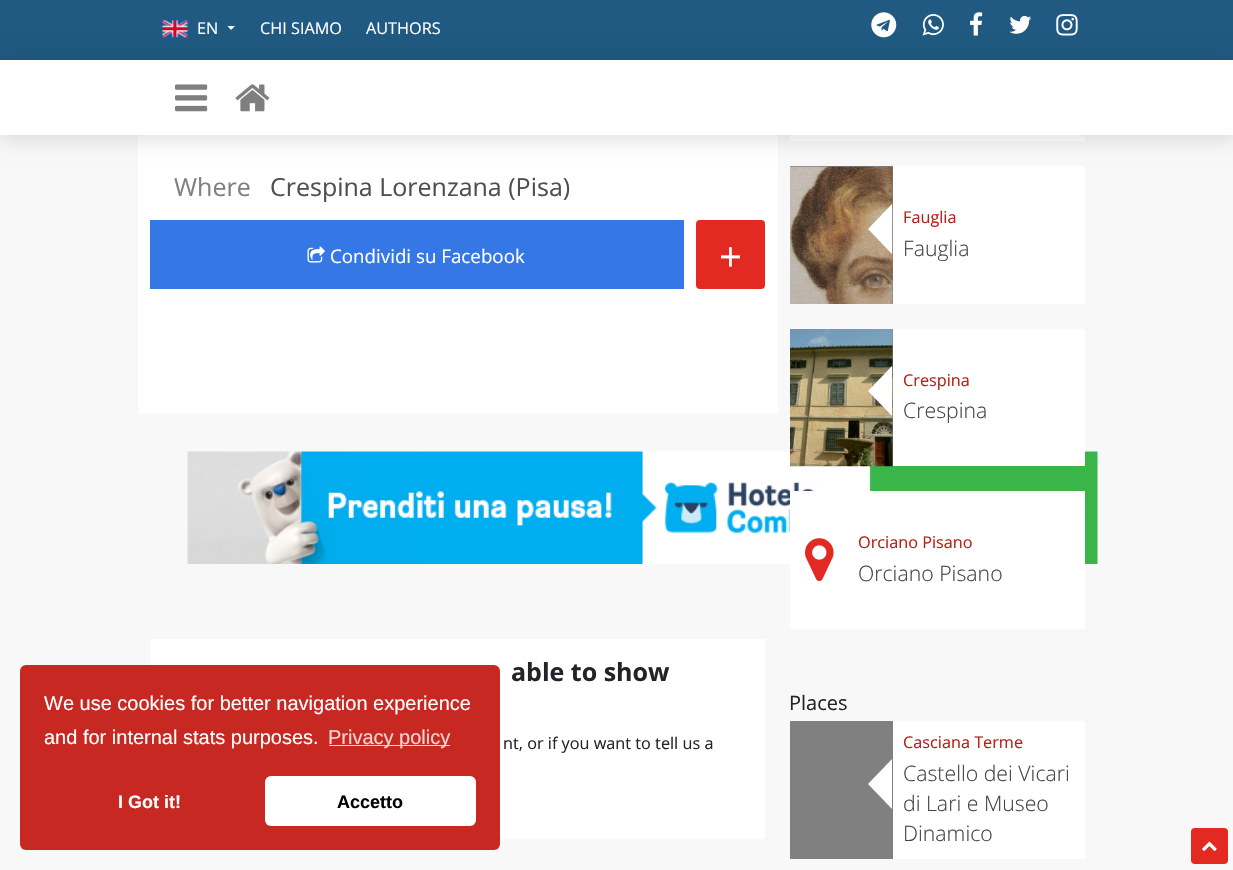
void draw(SkCanvas* canvas) {
    SkPaint paint;
    paint.setAntiAlias(true);
    auto face = [&](const char* family, int weight, float size, bool italic = false) {
        SkFontStyle style(weight, SkFontStyle::kNormal_Width,
            italic ? SkFontStyle::kItalic_Slant : SkFontStyle::kUpright_Slant);
        SkFont result(fontMgr->matchFamilyStyle(family, style), size);
        result.setSubpixel(true);
        return result;
    };
    auto write = [&](const char* s, float x, float y, const SkFont& font, SkColor color) {
        SkPaint ink(SkColor4f::FromColor(color));
        ink.setAntiAlias(true);
        canvas->drawString(s, x, y, font, ink);
    };
    auto block = [&](float x, float y, float w, float h, SkColor color) {
        SkPaint ink(SkColor4f::FromColor(color));
        ink.setAntiAlias(true);
        canvas->drawRect(SkRect::MakeXYWH(x, y, w, h), ink);
    };
    auto card = [&](float x, float y, float w, float h, float radius, SkColor color) {
        SkPaint ink(SkColor4f::FromColor(color));
        ink.setAntiAlias(true);
        canvas->drawRoundRect(SkRect::MakeXYWH(x, y, w, h), radius, radius, ink);
    };
    auto paste = [&](const char* path, float x, float y, float w, float h) {
        auto image = SkImages::DeferredFromEncodedData(SkData::MakeFromFileName(path));
        canvas->drawImageRect(image, SkRect::MakeXYWH(x, y, w, h), SkSamplingOptions());
    };
    canvas->clear(SkColorSetRGB(248, 248, 249));
    block(0, 0, 1233, 60, SkColorSetRGB(32, 89, 129));
    block(138, 135, 640, 279, SK_ColorWHITE);
    block(790, 135, 295, 6, SK_ColorWHITE);
    block(893, 166, 192, 138, SK_ColorWHITE);
    block(790, 166, 103, 138, SkColorSetRGB(128, 128, 128));
    paste("pic11.png", 790, 166, 103, 138);
    paint.setColor(SkColorSetARGB(36, 0, 0, 0));
    paint.setMaskFilter(SkMaskFilter::MakeBlur(kNormal_SkBlurStyle, 10.5f));
    canvas->drawRect(SkRect::MakeXYWH(0, 63, 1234, 75), paint);
    paint.setMaskFilter(nullptr);
    paste("pic1.png", 162, 20, 27, 18);
    auto kFont1 = face("Open Sans", 400, 16.25f);
    write("EN", 197, 34, kFont1, SK_ColorWHITE);
    paint.setColor(SK_ColorWHITE);
    canvas->drawPath(SkPathBuilder().moveTo(227.5f, 26).lineTo(235, 26).lineTo(231, 30).close().detach(), paint);
    write("CHI SIAMO", 260, 34, kFont1, SK_ColorWHITE);
    write("AUTHORS", 366, 34, kFont1, SK_ColorWHITE);
    paste("pic2.png", 871, 12, 26, 26);
    paste("pic3.png", 922, 14, 22, 22);
    paste("pic4.png", 970, 12, 13, 24);
    paste("pic5.png", 1009, 15, 23, 19);
    paste("pic6.png", 1056, 14, 22, 22);
    block(0, 60, 1233, 75, SK_ColorWHITE);
    paste("pic7.png", 175, 84, 33, 28);
    paste("pic8.png", 235, 84, 35, 28);
    auto kFont2 = face("Open Sans", 400, 25);
    write("Where", 174, 196, kFont2, SkColorSetRGB(128, 128, 128));
    write("Crespina Lorenzana (Pisa)", 270, 196, kFont2, SkColorSetRGB(79, 79, 79));
    block(150, 220, 534, 69, SkColorSetRGB(53, 120, 229));
    paste("pic9.png", 307, 246, 18, 17);
    auto kFont3 = face("Open Sans", 400, 18.75f);
    write("Condividi su Facebook", 330, 263, kFont3, SK_ColorWHITE);
    card(696, 220, 69, 69, 4, SkColorSetRGB(226, 42, 34));
    auto kFont4 = face("Open Sans", 400, 40);
    write("+", 719, 271, kFont4, SK_ColorWHITE);
    paste("pic10.png", 187, 451, 911, 113);
    block(150, 639, 615, 200, SK_ColorWHITE);
    auto kFont5 = face("Open Sans", 700, 25);
    write("able to show", 511, 681, kFont5, SkColorSetRGB(33, 37, 41));
    write("nt, or if you want to tell us a", 503, 749, kFont1, SkColorSetRGB(33, 37, 41));
    canvas->drawPath(SkPathBuilder().moveTo(892, 204).lineTo(892, 254).lineTo(868, 229).close().detach(), paint);
    write("Fauglia", 903, 223, kFont1, SkColorSetRGB(185, 31, 24));
    auto kFont6 = face("Open Sans", 300, 21.25f);
    write("Fauglia", 903, 256, kFont6, SkColorSetRGB(68, 68, 68));
    block(893, 329, 192, 137, SK_ColorWHITE);
    block(892, 329, 1, 137, SkColorSetRGB(128, 128, 128));
    paste("pic12.png", 790, 329, 103, 138);
    canvas->drawPath(SkPathBuilder().moveTo(892, 366).lineTo(892, 416).lineTo(868, 391).close().detach(), paint);
    write("Crespina", 903, 386, kFont1, SkColorSetRGB(185, 31, 24));
    write("Crespina", 903, 418, kFont6, SkColorSetRGB(68, 68, 68));
    block(790, 491, 295, 138, SK_ColorWHITE);
    paste("pic13.png", 805, 538, 29, 44);
    write("Orciano Pisano", 858, 548, kFont1, SkColorSetRGB(185, 31, 24));
    write("Orciano Pisano", 858, 581, kFont6, SkColorSetRGB(68, 68, 68));
    auto kFont7 = face("Open Sans", 400, 20);
    write("Places", 789, 710, kFont7, SkColorSetRGB(33, 37, 41));
    block(893, 721, 192, 138, SK_ColorWHITE);
    block(790, 721, 103, 138, SkColorSetRGB(128, 128, 128));
    canvas->drawPath(SkPathBuilder().moveTo(892, 759).lineTo(892, 809).lineTo(868, 784).close().detach(), paint);
    write("Casciana Terme", 903, 748, kFont1, SkColorSetRGB(185, 31, 24));
    write("Castello dei Vicari", 903, 781, kFont6, SkColorSetRGB(68, 68, 68));
    write("di Lari e Museo", 903, 811, kFont6, SkColorSetRGB(68, 68, 68));
    write("Dinamico", 903, 841, kFont6, SkColorSetRGB(68, 68, 68));
    card(1191, 828, 37, 36, 4, SkColorSetRGB(226, 42, 34));
    paste("pic14.png", 1202, 841, 15, 10);
    card(20, 665, 480, 185, 6, SkColorSetRGB(199, 40, 33));
    auto kFont8 = face("Liberation Sans", 400, 20);
    write("We use cookies for better navigation experience", 44, 710, kFont8, SK_ColorWHITE);
    write("and for internal stats purposes.", 44, 744, kFont8, SK_ColorWHITE);
    block(329, 745, 121, 1, SkColorSetRGB(244, 212, 211));
    write("Privacy policy", 328, 744, kFont8, SkColorSetRGB(244, 212, 211));
    auto kFont9 = face("Liberation Sans", 700, 18);
    write("I Got it!", 118, 808, kFont9, SK_ColorWHITE);
    card(265, 776, 211, 50, 6, SK_ColorWHITE);
    write("Accetto", 337, 808, kFont9, SK_ColorBLACK);
}
